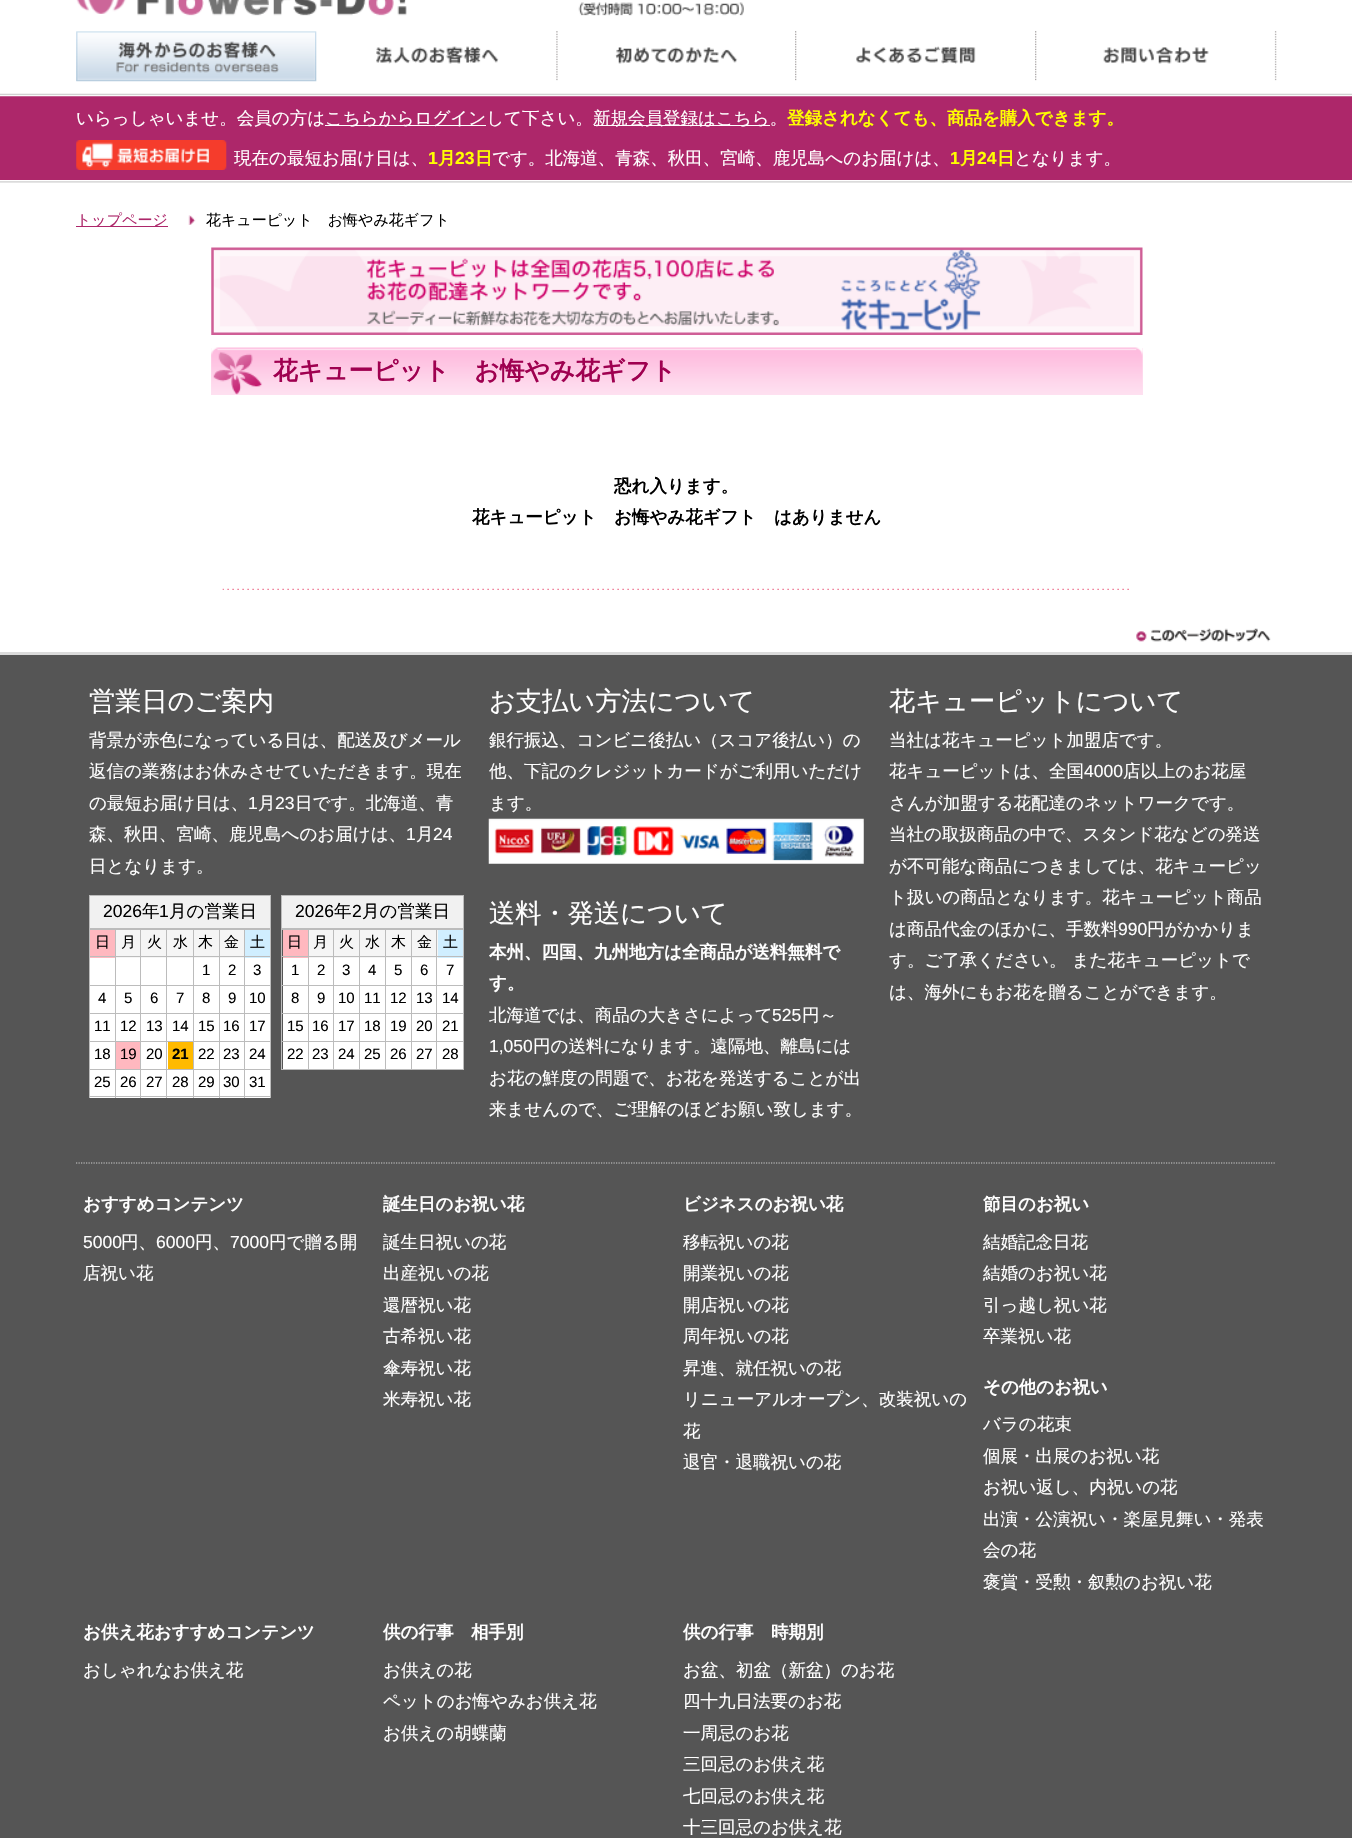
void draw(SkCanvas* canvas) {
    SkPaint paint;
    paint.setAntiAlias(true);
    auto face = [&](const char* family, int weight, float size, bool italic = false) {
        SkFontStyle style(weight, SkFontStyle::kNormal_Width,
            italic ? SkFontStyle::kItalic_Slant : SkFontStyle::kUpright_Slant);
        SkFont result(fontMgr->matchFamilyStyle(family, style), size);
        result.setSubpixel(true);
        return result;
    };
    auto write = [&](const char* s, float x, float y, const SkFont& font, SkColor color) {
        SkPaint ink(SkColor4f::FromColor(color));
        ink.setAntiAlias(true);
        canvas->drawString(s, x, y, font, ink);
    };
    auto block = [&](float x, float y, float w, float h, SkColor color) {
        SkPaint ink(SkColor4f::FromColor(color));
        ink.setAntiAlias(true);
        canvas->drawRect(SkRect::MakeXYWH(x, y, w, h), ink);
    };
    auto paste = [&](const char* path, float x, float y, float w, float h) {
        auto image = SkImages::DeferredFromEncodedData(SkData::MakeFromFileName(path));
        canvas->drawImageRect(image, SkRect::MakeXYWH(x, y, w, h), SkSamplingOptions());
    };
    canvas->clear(SK_ColorWHITE);
    paste("pic1.png", 0, 181, 1352, 2);
    paste("pic4.png", 76, 31, 239, 51);
    paste("pic5.png", 76, 31, 239, 50);
    paste("pic6.png", 315, 31, 184, 51);
    block(315, 31, 1, 1, SkColorSetRGB(209, 226, 239));
    paste("pic2.png", 76, 0, 331, 32);
    paste("pic3.png", 578, 2, 166, 14);
    paste("pic7.png", 556, 31, 182, 50);
    paste("pic8.png", 556, 31, 2, 1);
    paste("pic9.png", 795, 31, 181, 50);
    block(795, 31, 1, 1, SkColorSetRGB(179, 176, 176));
    paste("pic10.png", 1035, 31, 242, 50);
    paste("pic11.png", 1035, 31, 241, 1);
    block(0, 96, 1352, 84, SkColorSetRGB(173, 39, 106));
    paste("pic12.png", 0, 93, 1352, 4);
    auto kFont1 = face("WenQuanYi Zen Hei", 500, 17.5f);
    write("いらっしゃいませ。会員の方は", 76, 124, kFont1, SK_ColorWHITE);
    block(325, 125, 161, 1, SK_ColorWHITE);
    write("こちらからログインして下さい。", 325, 124, kFont1, SK_ColorWHITE);
    block(594, 125, 176, 1, SK_ColorWHITE);
    write("新規会員登録はこちら。", 593, 124, kFont1, SK_ColorWHITE);
    auto kFont2 = face("WenQuanYi Zen Hei", 700, 17.5f);
    write("登録されなくても、商品を購入できます。", 787, 124, kFont2, SkColorSetRGB(255, 255, 0));
    paste("pic13.png", 76, 140, 151, 30);
    write("現在の最短お届け日は、", 234, 164, kFont1, SK_ColorWHITE);
    auto kFont3 = face("Liberation Sans", 700, 17.5f);
    write("1", 428, 164, kFont3, SkColorSetRGB(255, 255, 0));
    write("月", 438, 164, kFont2, SkColorSetRGB(255, 255, 0));
    write("23", 455, 164, kFont3, SkColorSetRGB(255, 255, 0));
    write("日", 475, 164, kFont2, SkColorSetRGB(255, 255, 0));
    write("です。北海道、青森、秋田、宮崎、鹿児島へのお届けは、", 492, 164, kFont1, SK_ColorWHITE);
    write("1", 950, 164, kFont3, SkColorSetRGB(255, 255, 0));
    write("月", 960, 164, kFont2, SkColorSetRGB(255, 255, 0));
    write("24", 977, 164, kFont3, SkColorSetRGB(255, 255, 0));
    write("日", 997, 164, kFont2, SkColorSetRGB(255, 255, 0));
    write("となります。", 1014, 164, kFont1, SK_ColorWHITE);
    block(76, 226, 92, 1, SkColorSetRGB(173, 39, 106));
    auto kFont4 = face("WenQuanYi Zen Hei", 500, 15);
    write("トップページ", 76, 225, kFont4, SkColorSetRGB(173, 39, 106));
    paste("pic14.png", 188, 215, 8, 10);
    write("花キューピット　お悔やみ花ギフト", 206, 225, kFont4, SK_ColorBLACK);
    paste("pic15.png", 211, 247, 932, 88);
    block(211, 348, 932, 47, SkColorSetRGB(254, 225, 241));
    paste("pic16.png", 211, 347, 932, 48);
    auto kFont5 = face("WenQuanYi Zen Hei", 700, 24.8f);
    write("花キューピット　お悔やみ花ギフト", 273, 379, kFont5, SkColorSetRGB(159, 0, 80));
    paste("pic17.png", 222, 588, 907, 2);
    write("恐れ入ります。", 614, 492, kFont2, SK_ColorBLACK);
    write("花キューピット　お悔やみ花ギフト　はありません", 472, 523, kFont2, SK_ColorBLACK);
    paste("pic18.png", 1136, 628, 135, 14);
    block(0, 655, 1352, 1183, SkColorSetRGB(85, 85, 85));
    block(0, 652, 1352, 3, SkColorSetRGB(219, 219, 219));
    auto kFont6 = face("WenQuanYi Zen Hei", 500, 26.25f);
    write("営業日のご案内", 89, 710, kFont6, SK_ColorWHITE);
    write("背景が赤色になっている日は、配送及びメール", 89, 746, kFont1, SK_ColorWHITE);
    write("返信の業務はお休みさせていただきます。現在", 89, 777, kFont1, SK_ColorWHITE);
    write("の最短お届け日は、", 89, 809, kFont1, SK_ColorWHITE);
    auto kFont7 = face("Liberation Sans", 400, 17.5f);
    write("1", 248, 809, kFont7, SK_ColorWHITE);
    write("月", 258, 809, kFont1, SK_ColorWHITE);
    write("23", 275, 809, kFont7, SK_ColorWHITE);
    write("日です。北海道、青", 295, 809, kFont1, SK_ColorWHITE);
    write("森、秋田、宮崎、鹿児島へのお届けは、", 89, 840, kFont1, SK_ColorWHITE);
    write("1", 406, 840, kFont7, SK_ColorWHITE);
    write("月", 416, 840, kFont1, SK_ColorWHITE);
    write("24", 433, 840, kFont7, SK_ColorWHITE);
    write("日となります。", 89, 872, kFont1, SK_ColorWHITE);
    block(270, 929, 1, 169, SkColorSetRGB(188, 188, 188));
    block(90, 1070, 25, 28, SK_ColorWHITE);
    block(116, 1070, 24, 28, SK_ColorWHITE);
    block(141, 1070, 52, 28, SK_ColorWHITE);
    block(194, 1070, 25, 28, SK_ColorWHITE);
    block(220, 1070, 24, 28, SK_ColorWHITE);
    block(245, 1070, 25, 28, SK_ColorWHITE);
    block(89, 1096, 182, 1, SkColorSetRGB(188, 188, 188));
    block(89, 929, 1, 169, SkColorSetRGB(188, 188, 188));
    paint.setColor(SkColorSetRGB(241, 241, 241));
    canvas->drawRect(SkRect::MakeXYWH(89.5f, 895.5f, 181, 33), paint);
    paint.setStyle(SkPaint::kStroke_Style);
    paint.setStrokeWidth(1);
    paint.setColor(SkColorSetRGB(188, 188, 188));
    canvas->drawRect(SkRect::MakeXYWH(89.5f, 895.5f, 181, 33), paint);
    write("2026", 103, 917, kFont7, SK_ColorBLACK);
    write("年", 142, 917, kFont1, SK_ColorBLACK);
    write("1", 159, 917, kFont7, SK_ColorBLACK);
    write("月の営業日", 169, 917, kFont1, SK_ColorBLACK);
    block(90, 930, 25, 28, SkColorSetRGB(255, 184, 191));
    block(244, 929, 27, 1, SkColorSetRGB(188, 188, 188));
    block(220, 930, 24, 28, SkColorSetRGB(245, 245, 245));
    block(245, 930, 25, 28, SkColorSetRGB(208, 238, 255));
    block(244, 956, 27, 1, SkColorSetRGB(188, 188, 188));
    block(244, 985, 27, 1, SkColorSetRGB(188, 188, 188));
    block(244, 1013, 27, 1, SkColorSetRGB(188, 188, 188));
    block(244, 1041, 27, 1, SkColorSetRGB(188, 188, 188));
    block(244, 1069, 27, 1, SkColorSetRGB(188, 188, 188));
    block(244, 1069, 1, 29, SkColorSetRGB(188, 188, 188));
    block(219, 1069, 26, 1, SkColorSetRGB(188, 188, 188));
    block(244, 1041, 1, 29, SkColorSetRGB(188, 188, 188));
    block(219, 1041, 26, 1, SkColorSetRGB(188, 188, 188));
    block(244, 1013, 1, 30, SkColorSetRGB(188, 188, 188));
    block(219, 1013, 26, 1, SkColorSetRGB(188, 188, 188));
    block(244, 985, 1, 29, SkColorSetRGB(188, 188, 188));
    block(219, 985, 26, 1, SkColorSetRGB(188, 188, 188));
    block(244, 956, 1, 30, SkColorSetRGB(188, 188, 188));
    block(219, 956, 26, 1, SkColorSetRGB(188, 188, 188));
    block(244, 929, 1, 29, SkColorSetRGB(188, 188, 188));
    block(219, 929, 26, 1, SkColorSetRGB(188, 188, 188));
    block(194, 930, 25, 28, SkColorSetRGB(245, 245, 245));
    block(219, 1069, 1, 29, SkColorSetRGB(188, 188, 188));
    block(193, 1069, 27, 1, SkColorSetRGB(188, 188, 188));
    block(219, 1041, 1, 29, SkColorSetRGB(188, 188, 188));
    block(193, 1041, 27, 1, SkColorSetRGB(188, 188, 188));
    block(219, 1013, 1, 30, SkColorSetRGB(188, 188, 188));
    block(193, 1013, 27, 1, SkColorSetRGB(188, 188, 188));
    block(219, 985, 1, 29, SkColorSetRGB(188, 188, 188));
    block(193, 985, 27, 1, SkColorSetRGB(188, 188, 188));
    block(219, 956, 1, 30, SkColorSetRGB(188, 188, 188));
    block(193, 956, 27, 1, SkColorSetRGB(188, 188, 188));
    block(219, 929, 1, 29, SkColorSetRGB(188, 188, 188));
    block(193, 929, 27, 1, SkColorSetRGB(188, 188, 188));
    block(141, 930, 52, 28, SkColorSetRGB(245, 245, 245));
    block(193, 1069, 1, 29, SkColorSetRGB(188, 188, 188));
    block(166, 1069, 28, 1, SkColorSetRGB(188, 188, 188));
    block(193, 1041, 1, 29, SkColorSetRGB(188, 188, 188));
    block(166, 1041, 28, 1, SkColorSetRGB(188, 188, 188));
    block(193, 1013, 1, 30, SkColorSetRGB(188, 188, 188));
    block(166, 1013, 28, 1, SkColorSetRGB(188, 188, 188));
    block(193, 985, 1, 29, SkColorSetRGB(188, 188, 188));
    block(166, 985, 28, 1, SkColorSetRGB(188, 188, 188));
    block(193, 956, 1, 30, SkColorSetRGB(188, 188, 188));
    block(166, 956, 28, 1, SkColorSetRGB(188, 188, 188));
    block(193, 929, 1, 29, SkColorSetRGB(188, 188, 188));
    block(166, 929, 28, 1, SkColorSetRGB(188, 188, 188));
    block(141, 958, 52, 27, SK_ColorWHITE);
    block(141, 986, 52, 27, SK_ColorWHITE);
    block(141, 1014, 52, 27, SK_ColorWHITE);
    block(141, 1042, 27, 27, SK_ColorWHITE);
    block(166, 1069, 1, 29, SkColorSetRGB(188, 188, 188));
    block(140, 1069, 28, 1, SkColorSetRGB(188, 188, 188));
    block(166, 1041, 1, 29, SkColorSetRGB(188, 188, 188));
    block(140, 1041, 28, 1, SkColorSetRGB(188, 188, 188));
    block(166, 1013, 1, 30, SkColorSetRGB(188, 188, 188));
    block(140, 1013, 28, 1, SkColorSetRGB(188, 188, 188));
    block(166, 985, 1, 29, SkColorSetRGB(188, 188, 188));
    block(140, 985, 28, 1, SkColorSetRGB(188, 188, 188));
    block(166, 956, 1, 30, SkColorSetRGB(188, 188, 188));
    block(140, 956, 28, 1, SkColorSetRGB(188, 188, 188));
    block(166, 929, 1, 29, SkColorSetRGB(188, 188, 188));
    block(140, 929, 28, 1, SkColorSetRGB(188, 188, 188));
    block(116, 930, 24, 28, SkColorSetRGB(245, 245, 245));
    block(140, 1069, 1, 29, SkColorSetRGB(188, 188, 188));
    block(115, 1069, 26, 1, SkColorSetRGB(188, 188, 188));
    block(140, 1041, 1, 29, SkColorSetRGB(188, 188, 188));
    block(115, 1041, 26, 1, SkColorSetRGB(188, 188, 188));
    block(140, 1013, 1, 30, SkColorSetRGB(188, 188, 188));
    block(115, 1013, 26, 1, SkColorSetRGB(188, 188, 188));
    block(140, 985, 1, 29, SkColorSetRGB(188, 188, 188));
    block(115, 985, 26, 1, SkColorSetRGB(188, 188, 188));
    block(140, 956, 1, 30, SkColorSetRGB(188, 188, 188));
    block(115, 956, 26, 1, SkColorSetRGB(188, 188, 188));
    block(140, 929, 1, 29, SkColorSetRGB(188, 188, 188));
    block(115, 929, 26, 1, SkColorSetRGB(188, 188, 188));
    block(115, 1069, 1, 29, SkColorSetRGB(188, 188, 188));
    block(89, 1069, 27, 1, SkColorSetRGB(188, 188, 188));
    block(115, 1041, 1, 29, SkColorSetRGB(188, 188, 188));
    block(89, 1041, 27, 1, SkColorSetRGB(188, 188, 188));
    block(115, 1013, 1, 30, SkColorSetRGB(188, 188, 188));
    block(89, 1013, 27, 1, SkColorSetRGB(188, 188, 188));
    block(115, 985, 1, 29, SkColorSetRGB(188, 188, 188));
    block(89, 985, 27, 1, SkColorSetRGB(188, 188, 188));
    block(115, 956, 1, 30, SkColorSetRGB(188, 188, 188));
    block(89, 956, 27, 1, SkColorSetRGB(188, 188, 188));
    block(115, 929, 1, 29, SkColorSetRGB(188, 188, 188));
    block(89, 929, 27, 1, SkColorSetRGB(188, 188, 188));
    write("日", 95, 947, kFont4, SK_ColorBLACK);
    write("月", 121, 947, kFont4, SK_ColorBLACK);
    write("火", 147, 947, kFont4, SK_ColorBLACK);
    write("水", 173, 947, kFont4, SK_ColorBLACK);
    write("木", 198, 947, kFont4, SK_ColorBLACK);
    write("金", 224, 947, kFont4, SK_ColorBLACK);
    write("土", 250, 947, kFont4, SK_ColorBLACK);
    block(90, 958, 25, 27, SK_ColorWHITE);
    block(116, 958, 24, 27, SK_ColorWHITE);
    block(194, 958, 25, 27, SK_ColorWHITE);
    auto kFont8 = face("Liberation Sans", 400, 15);
    write("1", 202, 975, kFont8, SK_ColorBLACK);
    block(220, 958, 24, 27, SK_ColorWHITE);
    write("2", 228, 975, kFont8, SK_ColorBLACK);
    block(245, 958, 25, 27, SK_ColorWHITE);
    write("3", 253, 975, kFont8, SK_ColorBLACK);
    block(90, 986, 25, 27, SK_ColorWHITE);
    write("4", 98, 1003, kFont8, SK_ColorBLACK);
    block(116, 986, 24, 27, SK_ColorWHITE);
    write("5", 124, 1003, kFont8, SK_ColorBLACK);
    write("6", 150, 1003, kFont8, SK_ColorBLACK);
    write("7", 176, 1003, kFont8, SK_ColorBLACK);
    block(194, 986, 25, 27, SK_ColorWHITE);
    write("8", 202, 1003, kFont8, SK_ColorBLACK);
    block(220, 986, 24, 27, SK_ColorWHITE);
    write("9", 228, 1003, kFont8, SK_ColorBLACK);
    block(245, 986, 25, 27, SK_ColorWHITE);
    write("10", 249, 1003, kFont8, SK_ColorBLACK);
    block(90, 1014, 25, 27, SK_ColorWHITE);
    write("11", 94, 1031, kFont8, SK_ColorBLACK);
    block(116, 1014, 24, 27, SK_ColorWHITE);
    write("12", 120, 1031, kFont8, SK_ColorBLACK);
    write("13", 146, 1031, kFont8, SK_ColorBLACK);
    write("14", 172, 1031, kFont8, SK_ColorBLACK);
    block(194, 1014, 25, 27, SK_ColorWHITE);
    write("15", 198, 1031, kFont8, SK_ColorBLACK);
    block(220, 1014, 24, 27, SK_ColorWHITE);
    write("16", 223, 1031, kFont8, SK_ColorBLACK);
    block(245, 1014, 25, 27, SK_ColorWHITE);
    write("17", 249, 1031, kFont8, SK_ColorBLACK);
    block(90, 1042, 25, 27, SK_ColorWHITE);
    write("18", 94, 1059, kFont8, SK_ColorBLACK);
    block(116, 1042, 24, 27, SkColorSetRGB(255, 184, 191));
    write("19", 120, 1059, kFont8, SK_ColorBLACK);
    write("20", 146, 1059, kFont8, SK_ColorBLACK);
    block(168, 1042, 25, 27, SkColorSetRGB(255, 186, 0));
    auto kFont9 = face("Liberation Sans", 700, 15);
    write("21", 172, 1059, kFont9, SK_ColorBLACK);
    block(194, 1042, 25, 27, SK_ColorWHITE);
    write("22", 198, 1059, kFont8, SK_ColorBLACK);
    block(220, 1042, 24, 27, SK_ColorWHITE);
    write("23", 223, 1059, kFont8, SK_ColorBLACK);
    block(245, 1042, 25, 27, SK_ColorWHITE);
    write("24", 249, 1059, kFont8, SK_ColorBLACK);
    write("25", 94, 1087, kFont8, SK_ColorBLACK);
    write("26", 120, 1087, kFont8, SK_ColorBLACK);
    write("27", 146, 1087, kFont8, SK_ColorBLACK);
    write("28", 172, 1087, kFont8, SK_ColorBLACK);
    write("29", 198, 1087, kFont8, SK_ColorBLACK);
    write("30", 223, 1087, kFont8, SK_ColorBLACK);
    write("31", 249, 1087, kFont8, SK_ColorBLACK);
    block(463, 929, 1, 141, SkColorSetRGB(188, 188, 188));
    block(281, 1069, 183, 1, SkColorSetRGB(188, 188, 188));
    block(281, 929, 1, 141, SkColorSetRGB(188, 188, 188));
    paint.setStyle(SkPaint::kFill_Style);
    paint.setColor(SkColorSetRGB(241, 241, 241));
    canvas->drawRect(SkRect::MakeXYWH(281.5f, 895.5f, 182, 33), paint);
    paint.setStyle(SkPaint::kStroke_Style);
    paint.setColor(SkColorSetRGB(188, 188, 188));
    canvas->drawRect(SkRect::MakeXYWH(281.5f, 895.5f, 182, 33), paint);
    write("2026", 295, 917, kFont7, SK_ColorBLACK);
    write("年", 334, 917, kFont1, SK_ColorBLACK);
    write("2", 352, 917, kFont7, SK_ColorBLACK);
    write("月の営業日", 362, 917, kFont1, SK_ColorBLACK);
    block(283, 930, 25, 28, SkColorSetRGB(255, 184, 191));
    block(436, 929, 28, 1, SkColorSetRGB(188, 188, 188));
    block(412, 930, 26, 28, SkColorSetRGB(245, 245, 245));
    block(438, 930, 25, 28, SkColorSetRGB(208, 238, 255));
    block(436, 956, 28, 1, SkColorSetRGB(188, 188, 188));
    block(412, 958, 51, 27, SK_ColorWHITE);
    block(436, 985, 28, 1, SkColorSetRGB(188, 188, 188));
    block(412, 986, 51, 27, SK_ColorWHITE);
    block(436, 1013, 28, 1, SkColorSetRGB(188, 188, 188));
    block(412, 1014, 51, 27, SK_ColorWHITE);
    block(412, 1042, 51, 27, SK_ColorWHITE);
    block(436, 1041, 28, 1, SkColorSetRGB(188, 188, 188));
    block(436, 1041, 1, 29, SkColorSetRGB(188, 188, 188));
    block(411, 1041, 27, 1, SkColorSetRGB(188, 188, 188));
    block(436, 1013, 1, 30, SkColorSetRGB(188, 188, 188));
    block(411, 1013, 27, 1, SkColorSetRGB(188, 188, 188));
    block(436, 985, 1, 29, SkColorSetRGB(188, 188, 188));
    block(411, 985, 27, 1, SkColorSetRGB(188, 188, 188));
    block(436, 956, 1, 30, SkColorSetRGB(188, 188, 188));
    block(411, 956, 27, 1, SkColorSetRGB(188, 188, 188));
    block(436, 929, 1, 29, SkColorSetRGB(188, 188, 188));
    block(411, 929, 27, 1, SkColorSetRGB(188, 188, 188));
    block(386, 930, 25, 28, SkColorSetRGB(245, 245, 245));
    block(411, 1041, 1, 29, SkColorSetRGB(188, 188, 188));
    block(385, 1041, 28, 1, SkColorSetRGB(188, 188, 188));
    block(411, 1013, 1, 30, SkColorSetRGB(188, 188, 188));
    block(385, 1013, 28, 1, SkColorSetRGB(188, 188, 188));
    block(411, 985, 1, 29, SkColorSetRGB(188, 188, 188));
    block(385, 985, 28, 1, SkColorSetRGB(188, 188, 188));
    block(411, 956, 1, 30, SkColorSetRGB(188, 188, 188));
    block(385, 956, 28, 1, SkColorSetRGB(188, 188, 188));
    block(411, 929, 1, 29, SkColorSetRGB(188, 188, 188));
    block(385, 929, 28, 1, SkColorSetRGB(188, 188, 188));
    block(360, 930, 25, 28, SkColorSetRGB(245, 245, 245));
    block(385, 1041, 1, 29, SkColorSetRGB(188, 188, 188));
    block(359, 1041, 27, 1, SkColorSetRGB(188, 188, 188));
    block(385, 1013, 1, 30, SkColorSetRGB(188, 188, 188));
    block(359, 1013, 27, 1, SkColorSetRGB(188, 188, 188));
    block(385, 985, 1, 29, SkColorSetRGB(188, 188, 188));
    block(359, 985, 27, 1, SkColorSetRGB(188, 188, 188));
    block(385, 956, 1, 30, SkColorSetRGB(188, 188, 188));
    block(359, 956, 27, 1, SkColorSetRGB(188, 188, 188));
    block(385, 929, 1, 29, SkColorSetRGB(188, 188, 188));
    block(359, 929, 27, 1, SkColorSetRGB(188, 188, 188));
    block(334, 930, 25, 28, SkColorSetRGB(245, 245, 245));
    block(359, 1041, 1, 29, SkColorSetRGB(188, 188, 188));
    block(333, 1041, 27, 1, SkColorSetRGB(188, 188, 188));
    block(359, 1013, 1, 30, SkColorSetRGB(188, 188, 188));
    block(333, 1013, 27, 1, SkColorSetRGB(188, 188, 188));
    block(359, 985, 1, 29, SkColorSetRGB(188, 188, 188));
    block(333, 985, 27, 1, SkColorSetRGB(188, 188, 188));
    block(359, 956, 1, 30, SkColorSetRGB(188, 188, 188));
    block(333, 956, 27, 1, SkColorSetRGB(188, 188, 188));
    block(359, 929, 1, 29, SkColorSetRGB(188, 188, 188));
    block(333, 929, 27, 1, SkColorSetRGB(188, 188, 188));
    block(309, 930, 24, 28, SkColorSetRGB(245, 245, 245));
    block(333, 1041, 1, 29, SkColorSetRGB(188, 188, 188));
    block(308, 1041, 26, 1, SkColorSetRGB(188, 188, 188));
    block(333, 1013, 1, 30, SkColorSetRGB(188, 188, 188));
    block(308, 1013, 26, 1, SkColorSetRGB(188, 188, 188));
    block(333, 985, 1, 29, SkColorSetRGB(188, 188, 188));
    block(308, 985, 26, 1, SkColorSetRGB(188, 188, 188));
    block(333, 956, 1, 30, SkColorSetRGB(188, 188, 188));
    block(308, 956, 26, 1, SkColorSetRGB(188, 188, 188));
    block(333, 929, 1, 29, SkColorSetRGB(188, 188, 188));
    block(308, 929, 26, 1, SkColorSetRGB(188, 188, 188));
    block(308, 1041, 1, 29, SkColorSetRGB(188, 188, 188));
    block(281, 1041, 28, 1, SkColorSetRGB(188, 188, 188));
    block(308, 1013, 1, 30, SkColorSetRGB(188, 188, 188));
    block(281, 1013, 28, 1, SkColorSetRGB(188, 188, 188));
    block(308, 985, 1, 29, SkColorSetRGB(188, 188, 188));
    block(281, 985, 28, 1, SkColorSetRGB(188, 188, 188));
    block(308, 956, 1, 30, SkColorSetRGB(188, 188, 188));
    block(281, 956, 28, 1, SkColorSetRGB(188, 188, 188));
    block(308, 929, 1, 29, SkColorSetRGB(188, 188, 188));
    block(281, 929, 28, 1, SkColorSetRGB(188, 188, 188));
    write("日", 287, 947, kFont4, SK_ColorBLACK);
    write("月", 313, 947, kFont4, SK_ColorBLACK);
    write("火", 339, 947, kFont4, SK_ColorBLACK);
    write("水", 365, 947, kFont4, SK_ColorBLACK);
    write("木", 391, 947, kFont4, SK_ColorBLACK);
    write("金", 417, 947, kFont4, SK_ColorBLACK);
    write("土", 443, 947, kFont4, SK_ColorBLACK);
    block(283, 958, 25, 27, SK_ColorWHITE);
    write("1", 291, 975, kFont8, SK_ColorBLACK);
    block(309, 958, 24, 27, SK_ColorWHITE);
    write("2", 317, 975, kFont8, SK_ColorBLACK);
    block(334, 958, 25, 27, SK_ColorWHITE);
    write("3", 342, 975, kFont8, SK_ColorBLACK);
    block(360, 958, 25, 27, SK_ColorWHITE);
    write("4", 368, 975, kFont8, SK_ColorBLACK);
    block(386, 958, 25, 27, SK_ColorWHITE);
    write("5", 394, 975, kFont8, SK_ColorBLACK);
    write("6", 420, 975, kFont8, SK_ColorBLACK);
    write("7", 446, 975, kFont8, SK_ColorBLACK);
    block(283, 986, 25, 27, SK_ColorWHITE);
    write("8", 291, 1003, kFont8, SK_ColorBLACK);
    block(309, 986, 24, 27, SK_ColorWHITE);
    write("9", 317, 1003, kFont8, SK_ColorBLACK);
    block(334, 986, 25, 27, SK_ColorWHITE);
    write("10", 338, 1003, kFont8, SK_ColorBLACK);
    block(360, 986, 25, 27, SK_ColorWHITE);
    write("11", 364, 1003, kFont8, SK_ColorBLACK);
    block(386, 986, 25, 27, SK_ColorWHITE);
    write("12", 390, 1003, kFont8, SK_ColorBLACK);
    write("13", 416, 1003, kFont8, SK_ColorBLACK);
    write("14", 442, 1003, kFont8, SK_ColorBLACK);
    block(283, 1014, 25, 27, SK_ColorWHITE);
    write("15", 287, 1031, kFont8, SK_ColorBLACK);
    block(309, 1014, 24, 27, SK_ColorWHITE);
    write("16", 312, 1031, kFont8, SK_ColorBLACK);
    block(334, 1014, 25, 27, SK_ColorWHITE);
    write("17", 338, 1031, kFont8, SK_ColorBLACK);
    block(360, 1014, 25, 27, SK_ColorWHITE);
    write("18", 364, 1031, kFont8, SK_ColorBLACK);
    block(386, 1014, 25, 27, SK_ColorWHITE);
    write("19", 390, 1031, kFont8, SK_ColorBLACK);
    write("20", 416, 1031, kFont8, SK_ColorBLACK);
    write("21", 442, 1031, kFont8, SK_ColorBLACK);
    block(283, 1042, 25, 27, SK_ColorWHITE);
    write("22", 287, 1059, kFont8, SK_ColorBLACK);
    block(309, 1042, 24, 27, SK_ColorWHITE);
    write("23", 312, 1059, kFont8, SK_ColorBLACK);
    block(334, 1042, 25, 27, SK_ColorWHITE);
    write("24", 338, 1059, kFont8, SK_ColorBLACK);
    block(360, 1042, 25, 27, SK_ColorWHITE);
    write("25", 364, 1059, kFont8, SK_ColorBLACK);
    block(386, 1042, 25, 27, SK_ColorWHITE);
    write("26", 390, 1059, kFont8, SK_ColorBLACK);
    write("27", 416, 1059, kFont8, SK_ColorBLACK);
    write("28", 442, 1059, kFont8, SK_ColorBLACK);
    write("お支払い方法について", 489, 710, kFont6, SK_ColorWHITE);
    write("銀行振込、コンビニ後払い（スコア後払い）の", 489, 746, kFont1, SK_ColorWHITE);
    write("他、下記のクレジットカードがご利用いただけ", 489, 777, kFont1, SK_ColorWHITE);
    write("ます。", 489, 809, kFont1, SK_ColorWHITE);
    paste("pic19.png", 488, 818, 376, 46);
    write("送料・発送について", 489, 922, kFont6, SK_ColorWHITE);
    write("本州、四国、九州地方は全商品が送料無料で", 489, 958, kFont2, SK_ColorWHITE);
    write("す。", 489, 989, kFont2, SK_ColorWHITE);
    write("北海道では、商品の大きさによって", 489, 1021, kFont1, SK_ColorWHITE);
    write("525", 772, 1021, kFont7, SK_ColorWHITE);
    write("円～", 802, 1021, kFont1, SK_ColorWHITE);
    write("1,050", 489, 1052, kFont7, SK_ColorWHITE);
    write("円の送料になります。遠隔地、離島には", 533, 1052, kFont1, SK_ColorWHITE);
    write("お花の鮮度の問題で、お花を発送することが出", 489, 1084, kFont1, SK_ColorWHITE);
    write("来ませんので、ご理解のほどお願い致します。", 489, 1115, kFont1, SK_ColorWHITE);
    write("花キューピットについて", 889, 710, kFont6, SK_ColorWHITE);
    write("当社は花キューピット加盟店です。", 889, 746, kFont1, SK_ColorWHITE);
    write("花キューピットは、全国", 889, 777, kFont1, SK_ColorWHITE);
    write("4000", 1084, 777, kFont7, SK_ColorWHITE);
    write("店以上のお花屋", 1123, 777, kFont1, SK_ColorWHITE);
    write("さんが加盟する花配達のネットワークです。", 889, 809, kFont1, SK_ColorWHITE);
    write("当社の取扱商品の中で、スタンド花などの発送", 889, 840, kFont1, SK_ColorWHITE);
    write("が不可能な商品につきましては、花キューピッ", 889, 872, kFont1, SK_ColorWHITE);
    write("ト扱いの商品となります。花キューピット商品", 889, 903, kFont1, SK_ColorWHITE);
    write("は商品代金のほかに、手数料", 889, 935, kFont1, SK_ColorWHITE);
    write("990", 1118, 935, kFont7, SK_ColorWHITE);
    write("円がかかりま", 1147, 935, kFont1, SK_ColorWHITE);
    write("す。ご了承ください。 また花キューピットで", 889, 966, kFont1, SK_ColorWHITE);
    write("は、海外にもお花を贈ることができます。", 889, 998, kFont1, SK_ColorWHITE);
    paint.setStrokeWidth(1.2f);
    paint.setColor(SkColorSetRGB(204, 204, 204));
    paint.setPathEffect(SkDashPathEffect::Make({{1.25f, 1.25f}}, 0));
    canvas->drawPath(SkPathBuilder().moveTo(76, 1163).lineTo(1276, 1163).detach(), paint);
    paint.setPathEffect(nullptr);
    write("おすすめコンテンツ", 83, 1210, kFont2, SK_ColorWHITE);
    write("5000", 83, 1248, kFont7, SK_ColorWHITE);
    write("円、", 121, 1248, kFont1, SK_ColorWHITE);
    write("6000", 156, 1248, kFont7, SK_ColorWHITE);
    write("円、", 195, 1248, kFont1, SK_ColorWHITE);
    write("7000", 230, 1248, kFont7, SK_ColorWHITE);
    write("円で贈る開", 269, 1248, kFont1, SK_ColorWHITE);
    write("店祝い花", 83, 1279, kFont1, SK_ColorWHITE);
    write("誕生日のお祝い花", 383, 1210, kFont2, SK_ColorWHITE);
    write("誕生日祝いの花", 383, 1248, kFont1, SK_ColorWHITE);
    write("出産祝いの花", 383, 1279, kFont1, SK_ColorWHITE);
    write("還暦祝い花", 383, 1311, kFont1, SK_ColorWHITE);
    write("古希祝い花", 383, 1342, kFont1, SK_ColorWHITE);
    write("傘寿祝い花", 383, 1374, kFont1, SK_ColorWHITE);
    write("米寿祝い花", 383, 1405, kFont1, SK_ColorWHITE);
    write("ビジネスのお祝い花", 683, 1210, kFont2, SK_ColorWHITE);
    write("移転祝いの花", 683, 1248, kFont1, SK_ColorWHITE);
    write("開業祝いの花", 683, 1279, kFont1, SK_ColorWHITE);
    write("開店祝いの花", 683, 1311, kFont1, SK_ColorWHITE);
    write("周年祝いの花", 683, 1342, kFont1, SK_ColorWHITE);
    write("昇進、就任祝いの花", 683, 1374, kFont1, SK_ColorWHITE);
    write("リニューアルオープン、改装祝いの", 683, 1405, kFont1, SK_ColorWHITE);
    write("花", 683, 1437, kFont1, SK_ColorWHITE);
    write("退官・退職祝いの花", 683, 1468, kFont1, SK_ColorWHITE);
    write("節目のお祝い", 983, 1210, kFont2, SK_ColorWHITE);
    write("結婚記念日花", 983, 1248, kFont1, SK_ColorWHITE);
    write("結婚のお祝い花", 983, 1279, kFont1, SK_ColorWHITE);
    write("引っ越し祝い花", 983, 1311, kFont1, SK_ColorWHITE);
    write("卒業祝い花", 983, 1342, kFont1, SK_ColorWHITE);
    write("その他のお祝い", 983, 1393, kFont2, SK_ColorWHITE);
    write("バラの花束", 983, 1430, kFont1, SK_ColorWHITE);
    write("個展・出展のお祝い花", 983, 1462, kFont1, SK_ColorWHITE);
    write("お祝い返し、内祝いの花", 983, 1493, kFont1, SK_ColorWHITE);
    write("出演・公演祝い・楽屋見舞い・発表", 983, 1525, kFont1, SK_ColorWHITE);
    write("会の花", 983, 1556, kFont1, SK_ColorWHITE);
    write("褒賞・受勲・叙勲のお祝い花", 983, 1588, kFont1, SK_ColorWHITE);
    write("お供え花おすすめコンテンツ", 83, 1638, kFont2, SK_ColorWHITE);
    write("おしゃれなお供え花", 83, 1676, kFont1, SK_ColorWHITE);
    write("供の行事　相手別", 383, 1638, kFont2, SK_ColorWHITE);
    write("お供えの花", 383, 1676, kFont1, SK_ColorWHITE);
    write("ペットのお悔やみお供え花", 383, 1707, kFont1, SK_ColorWHITE);
    write("お供えの胡蝶蘭", 383, 1739, kFont1, SK_ColorWHITE);
    write("供の行事　時期別", 683, 1638, kFont2, SK_ColorWHITE);
    write("お盆、初盆（新盆）のお花", 683, 1676, kFont1, SK_ColorWHITE);
    write("四十九日法要のお花", 683, 1707, kFont1, SK_ColorWHITE);
    write("一周忌のお花", 683, 1739, kFont1, SK_ColorWHITE);
    write("三回忌のお供え花", 683, 1770, kFont1, SK_ColorWHITE);
    write("七回忌のお供え花", 683, 1802, kFont1, SK_ColorWHITE);
    write("十三回忌のお供え花", 683, 1833, kFont1, SK_ColorWHITE);
}
